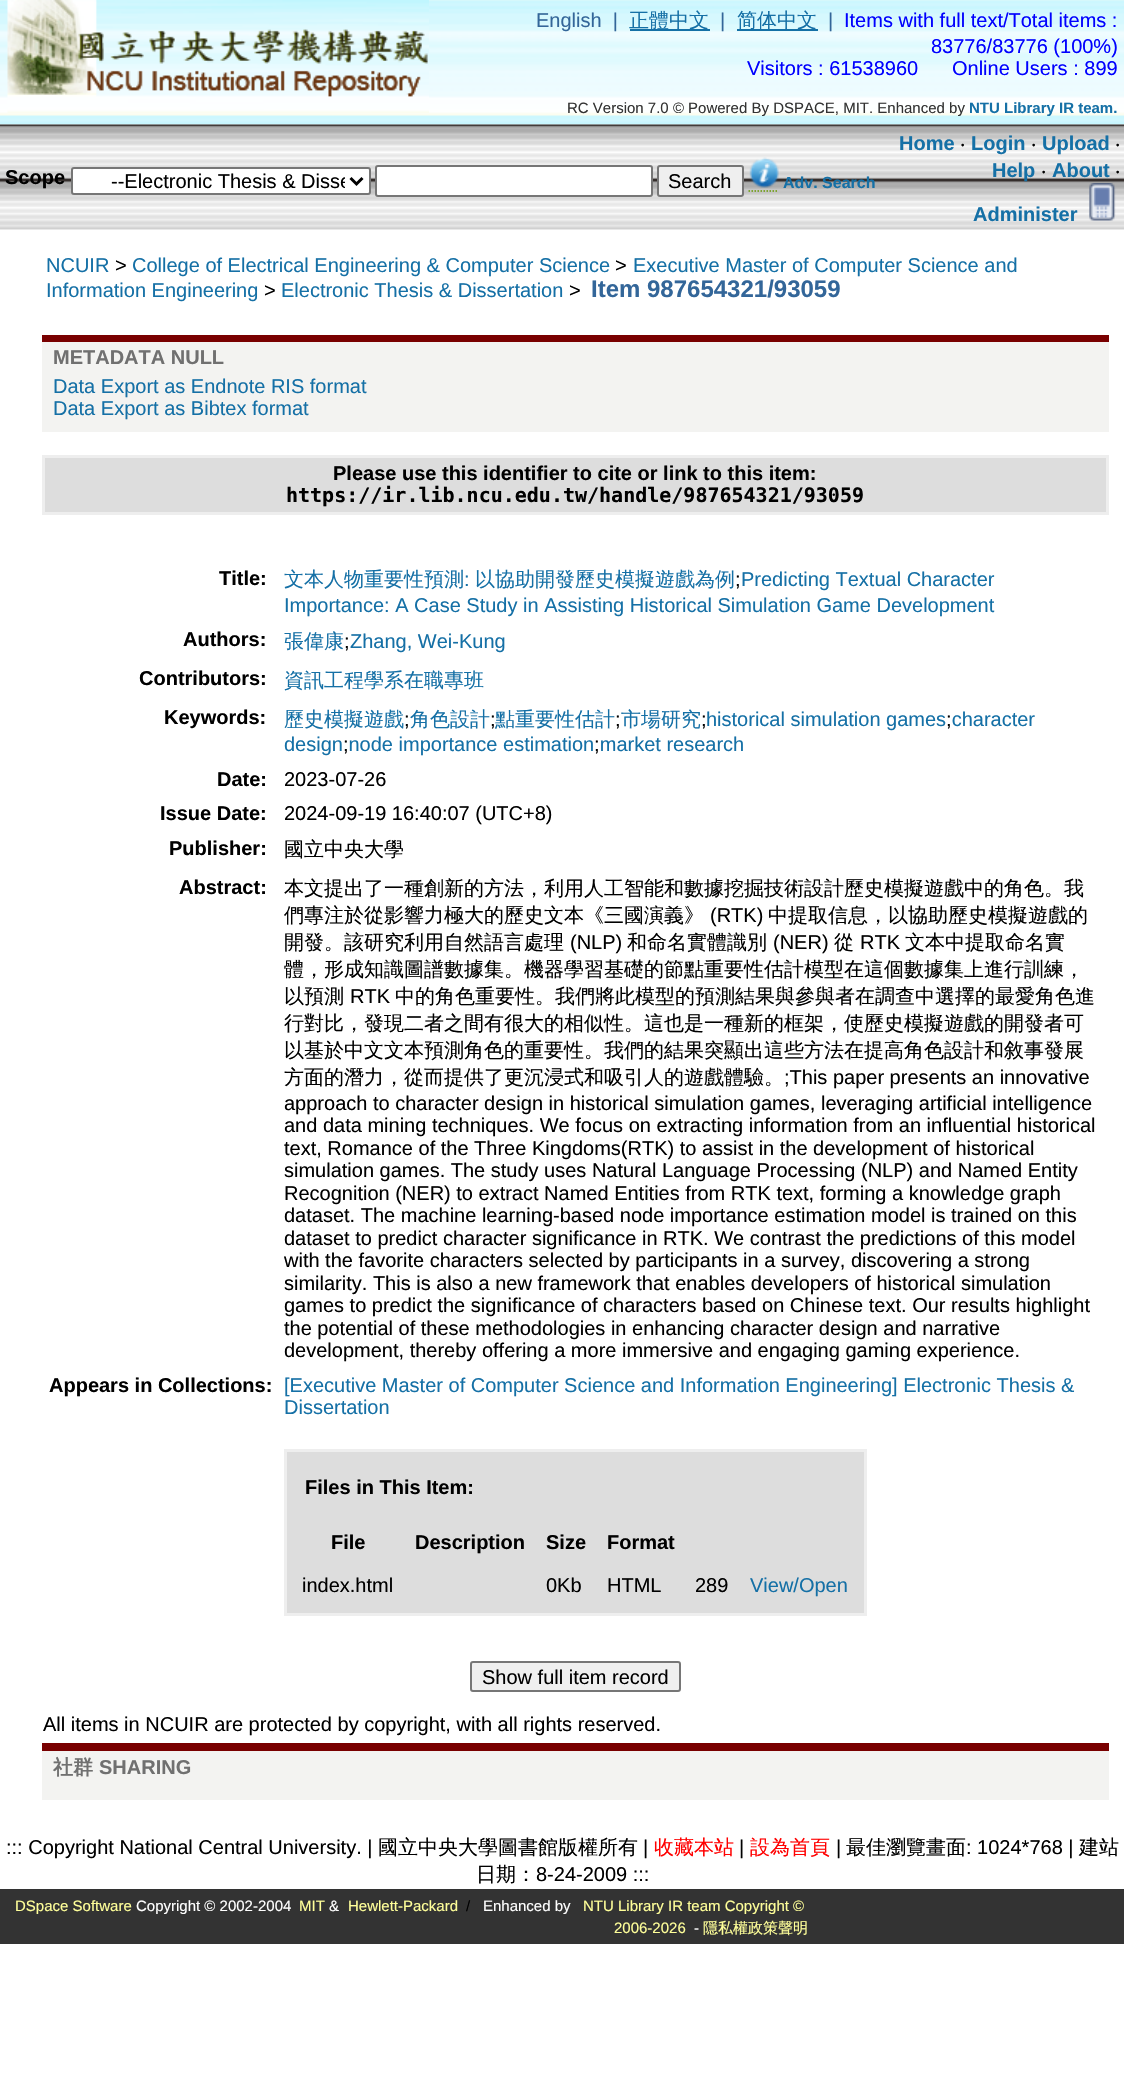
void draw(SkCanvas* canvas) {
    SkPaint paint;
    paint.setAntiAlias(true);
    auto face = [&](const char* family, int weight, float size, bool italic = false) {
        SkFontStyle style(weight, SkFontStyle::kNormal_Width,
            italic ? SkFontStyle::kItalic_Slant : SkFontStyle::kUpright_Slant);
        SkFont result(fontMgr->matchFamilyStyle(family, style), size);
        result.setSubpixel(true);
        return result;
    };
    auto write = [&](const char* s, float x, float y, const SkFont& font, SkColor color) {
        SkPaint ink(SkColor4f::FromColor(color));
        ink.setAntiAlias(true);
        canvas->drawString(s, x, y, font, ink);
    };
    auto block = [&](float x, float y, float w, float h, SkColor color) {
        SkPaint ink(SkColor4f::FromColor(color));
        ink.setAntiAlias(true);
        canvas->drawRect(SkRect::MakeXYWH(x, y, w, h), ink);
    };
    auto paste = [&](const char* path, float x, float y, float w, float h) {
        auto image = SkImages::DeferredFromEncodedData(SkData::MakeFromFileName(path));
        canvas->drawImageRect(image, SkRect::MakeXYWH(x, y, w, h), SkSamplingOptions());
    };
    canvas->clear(SK_ColorWHITE);
    paste("pic1.png", 0, 0, 1124, 125);
    paste("pic2.png", 7, 0, 422, 113);
    auto kFont1 = face("Liberation Sans", 400, 20);
    write("English  |", 536, 27, kFont1, SkColorSetRGB(51, 102, 153));
    block(630, 29, 80, 2, SkColorSetRGB(21, 112, 166));
    auto kFont2 = face("WenQuanYi Zen Hei", 500, 20);
    write("正體中文", 629, 27, kFont2, SkColorSetRGB(21, 112, 166));
    write("|", 720, 27, kFont1, SkColorSetRGB(51, 102, 153));
    block(737, 29, 81, 2, SkColorSetRGB(21, 112, 166));
    write("简体中文", 737, 27, kFont2, SkColorSetRGB(21, 112, 166));
    write("|", 828, 27, kFont1, SkColorSetRGB(51, 102, 153));
    write("Items with full text/Total items :", 844, 27, kFont1, SkColorSetRGB(0, 0, 255));
    write("83776/83776 (100%)", 931, 53, kFont1, SkColorSetRGB(0, 0, 255));
    write("Visitors : 61538960", 747, 75, kFont1, SkColorSetRGB(0, 0, 255));
    write("Online Users : 899", 952, 75, kFont1, SkColorSetRGB(0, 0, 255));
    auto kFont3 = face("Liberation Sans", 400, 15);
    write("RC Version 7.0 © Powered By DSPACE, MIT. Enhanced by", 567, 113, kFont3, SkColorSetRGB(51, 51, 51));
    auto kFont4 = face("Liberation Sans", 700, 15);
    write("NTU Library IR team.", 969, 113, kFont4, SkColorSetRGB(21, 112, 166));
    paste("pic3.png", 0, 124, 1124, 106);
    auto kFont5 = face("Liberation Sans", 700, 20);
    write("Scope", 5, 184, kFont5, SK_ColorBLACK);
    paint.setColor(SK_ColorWHITE);
    canvas->drawRoundRect(SkRect::MakeXYWH(72, 168, 298, 26), 2, 2, paint);
    paint.setStyle(SkPaint::kStroke_Style);
    paint.setStrokeWidth(2);
    paint.setColor(SkColorSetRGB(118, 118, 118));
    canvas->drawRoundRect(SkRect::MakeXYWH(72, 168, 298, 26), 2, 2, paint);
    paint.setStrokeWidth(3);
    paint.setColor(SK_ColorBLACK);
    canvas->drawPath(SkPathBuilder().moveTo(350.5f, 178).lineTo(356.5f, 184).lineTo(362.5f, 178).detach(), paint);
    canvas->save();
    canvas->clipRect(SkRect::MakeXYWH(78, 168, 267, 26));
    write("--Electronic Thesis & Disse", 111, 188, kFont1, SK_ColorBLACK);
    canvas->restore();
    paint.setStyle(SkPaint::kFill_Style);
    paint.setColor(SK_ColorWHITE);
    canvas->drawRoundRect(SkRect::MakeXYWH(376, 166, 276, 30), 2, 2, paint);
    paint.setStyle(SkPaint::kStroke_Style);
    paint.setStrokeWidth(2);
    paint.setColor(SkColorSetRGB(118, 118, 118));
    canvas->drawRoundRect(SkRect::MakeXYWH(376, 166, 276, 30), 2, 2, paint);
    paint.setStyle(SkPaint::kFill_Style);
    paint.setColor(SkColorSetRGB(239, 239, 239));
    canvas->drawRoundRect(SkRect::MakeXYWH(658, 166, 85, 30), 2, 2, paint);
    paint.setStyle(SkPaint::kStroke_Style);
    paint.setColor(SkColorSetRGB(118, 118, 118));
    canvas->drawRoundRect(SkRect::MakeXYWH(658, 166, 85, 30), 2, 2, paint);
    write("Search", 668, 188, kFont1, SK_ColorBLACK);
    paste("pic4.png", 749, 157, 30, 31);
    auto kFont6 = face("Liberation Sans", 700, 16);
    write("Adv. Search", 783, 188, kFont6, SkColorSetRGB(21, 112, 166));
    paint.setStrokeWidth(1.5f);
    paint.setColor(SkColorSetRGB(102, 153, 0));
    paint.setPathEffect(SkDashPathEffect::Make({{1.5f, 1.5f}}, 0));
    canvas->drawPath(SkPathBuilder().moveTo(748.5f, 191).lineTo(778.5f, 191).detach(), paint);
    paint.setPathEffect(nullptr);
    write("Home", 899, 150, kFont5, SkColorSetRGB(21, 112, 166));
    auto kFont7 = face("Noto Sans", 400, 20);
    write("‧", 960, 150, kFont7, SK_ColorBLACK);
    write("Login", 971, 150, kFont5, SkColorSetRGB(21, 112, 166));
    write("‧", 1031, 150, kFont7, SK_ColorBLACK);
    write("Upload", 1042, 150, kFont5, SkColorSetRGB(21, 112, 166));
    write("‧", 1115, 150, kFont7, SK_ColorBLACK);
    write("Help", 992, 177, kFont5, SkColorSetRGB(21, 112, 166));
    write("‧", 1041, 177, kFont7, SK_ColorBLACK);
    write("About", 1052, 177, kFont5, SkColorSetRGB(21, 112, 166));
    write("‧", 1115, 177, kFont7, SK_ColorBLACK);
    write("Administer", 973, 221, kFont5, SkColorSetRGB(21, 112, 166));
    paste("pic5.png", 1089, 183, 27, 38);
    write("NCUIR", 46, 272, kFont1, SkColorSetRGB(21, 112, 166));
    write(">", 115, 272, kFont1, SK_ColorBLACK);
    write("College of Electrical Engineering & Computer Science", 132, 272, kFont1, SkColorSetRGB(21, 112, 166));
    write(">", 615, 272, kFont1, SK_ColorBLACK);
    write("Executive Master of Computer Science and", 633, 272, kFont1, SkColorSetRGB(21, 112, 166));
    write("Information Engineering", 46, 297, kFont1, SkColorSetRGB(21, 112, 166));
    write(">", 264, 297, kFont1, SK_ColorBLACK);
    write("Electronic Thesis & Dissertation", 281, 297, kFont1, SkColorSetRGB(21, 112, 166));
    write(">", 569, 297, kFont1, SK_ColorBLACK);
    auto kFont8 = face("Liberation Sans", 700, 24);
    write("Item 987654321/93059", 591, 297, kFont8, SkColorSetRGB(51, 102, 153));
    block(42, 342, 1067, 90, SkColorSetRGB(243, 243, 241));
    block(42, 335, 1067, 7, SkColorSetRGB(121, 0, 0));
    write("METADATA NULL", 53, 364, kFont5, SkColorSetRGB(112, 112, 112));
    write("Data Export as Endnote RIS format", 53, 393, kFont1, SkColorSetRGB(21, 112, 166));
    write("Data Export as Bibtex format", 53, 415, kFont1, SkColorSetRGB(21, 112, 166));
    block(42, 455, 1067, 60, SkColorSetRGB(238, 238, 238));
    block(45, 458, 1061, 54, SkColorSetRGB(221, 221, 221));
    write("Please use this identifier to cite or link to this item:", 333, 480, kFont5, SK_ColorBLACK);
    auto kFont9 = face("DejaVu Sans Mono", 700, 20);
    write("https://ir.lib.ncu.edu.tw/handle/987654321/93059", 286, 502, kFont9, SK_ColorBLACK);
    write("Title:", 219, 585, kFont5, SK_ColorBLACK);
    write("文本人物重要性預測", 284, 586, kFont2, SkColorSetRGB(21, 112, 166));
    write(":", 464, 586, kFont1, SkColorSetRGB(21, 112, 166));
    write("以協助開發歷史模擬遊戲為例", 475, 586, kFont2, SkColorSetRGB(21, 112, 166));
    write(";", 735, 586, kFont1, SK_ColorBLACK);
    write("Predicting Textual Character", 741, 586, kFont1, SkColorSetRGB(21, 112, 166));
    write("Importance: A Case Study in Assisting Historical Simulation Game Development", 284, 612, kFont1, SkColorSetRGB(21, 112, 166));
    write("Authors:", 183, 646, kFont5, SK_ColorBLACK);
    write("張偉康", 284, 648, kFont2, SkColorSetRGB(21, 112, 166));
    write(";", 344, 648, kFont1, SK_ColorBLACK);
    write("Zhang, Wei-Kung", 350, 648, kFont1, SkColorSetRGB(21, 112, 166));
    write("Contributors:", 139, 685, kFont5, SK_ColorBLACK);
    write("資訊工程學系在職專班", 284, 687, kFont2, SkColorSetRGB(21, 112, 166));
    write("Keywords:", 164, 724, kFont5, SK_ColorBLACK);
    write("歷史模擬遊戲", 284, 726, kFont2, SkColorSetRGB(21, 112, 166));
    write(";", 404, 726, kFont1, SK_ColorBLACK);
    write("角色設計", 410, 726, kFont2, SkColorSetRGB(21, 112, 166));
    write(";", 490, 726, kFont1, SK_ColorBLACK);
    write("點重要性估計", 495, 726, kFont2, SkColorSetRGB(21, 112, 166));
    write(";", 615, 726, kFont1, SK_ColorBLACK);
    write("市場研究", 621, 726, kFont2, SkColorSetRGB(21, 112, 166));
    write(";", 701, 726, kFont1, SK_ColorBLACK);
    write("historical simulation games character", 706, 726, kFont1, SkColorSetRGB(21, 112, 166));
    write(";", 946, 726, kFont1, SK_ColorBLACK);
    write("design node importance estimation market research", 284, 751, kFont1, SkColorSetRGB(21, 112, 166));
    write(";", 343, 751, kFont1, SK_ColorBLACK);
    write(";", 594, 751, kFont1, SK_ColorBLACK);
    write("Date:", 217, 786, kFont5, SK_ColorBLACK);
    write("2023-07-26", 284, 786, kFont1, SK_ColorBLACK);
    write("Issue Date:", 160, 820, kFont5, SK_ColorBLACK);
    write("2024-09-19 16:40:07 (UTC+8)", 284, 820, kFont1, SK_ColorBLACK);
    write("Publisher:", 169, 855, kFont5, SK_ColorBLACK);
    write("國立中央大學", 284, 856, kFont2, SK_ColorBLACK);
    write("Abstract:", 179, 894, kFont5, SK_ColorBLACK);
    write("本文提出了一種創新的方法，利用人工智能和數據挖掘技術設計歷史模擬遊戲中的角色。我", 284, 895, kFont2, SK_ColorBLACK);
    write("們專注於從影響力極大的歷史文本《三國演義》", 284, 922, kFont2, SK_ColorBLACK);
    write("(RTK)", 710, 922, kFont1, SK_ColorBLACK);
    write("中提取信息，以協助歷史模擬遊戲的", 768, 922, kFont2, SK_ColorBLACK);
    write("開發。該研究利用自然語言處理", 284, 949, kFont2, SK_ColorBLACK);
    write("(NLP)", 570, 949, kFont1, SK_ColorBLACK);
    write("和命名實體識別", 627, 949, kFont2, SK_ColorBLACK);
    write("(NER)", 773, 949, kFont1, SK_ColorBLACK);
    write("從", 834, 949, kFont2, SK_ColorBLACK);
    write("RTK", 860, 949, kFont1, SK_ColorBLACK);
    write("文本中提取命名實", 905, 949, kFont2, SK_ColorBLACK);
    write("體，形成知識圖譜數據集。機器學習基礎的節點重要性估計模型在這個數據集上進行訓練，", 284, 976, kFont2, SK_ColorBLACK);
    write("以預測", 284, 1003, kFont2, SK_ColorBLACK);
    write("RTK", 350, 1003, kFont1, SK_ColorBLACK);
    write("中的角色重要性。我們將此模型的預測結果與參與者在調查中選擇的最愛角色進", 395, 1003, kFont2, SK_ColorBLACK);
    write("行對比，發現二者之間有很大的相似性。這也是一種新的框架，使歷史模擬遊戲的開發者可", 284, 1030, kFont2, SK_ColorBLACK);
    write("以基於中文文本預測角色的重要性。我們的結果突顯出這些方法在提高角色設計和敘事發展", 284, 1057, kFont2, SK_ColorBLACK);
    write("方面的潛力，從而提供了更沉浸式和吸引人的遊戲體驗。", 284, 1084, kFont2, SK_ColorBLACK);
    write(";This paper presents an innovative", 784, 1084, kFont1, SK_ColorBLACK);
    write("approach to character design in historical simulation games, leveraging artificial intelligence", 284, 1110, kFont1, SK_ColorBLACK);
    write("and data mining techniques. We focus on extracting information from an influential historical", 284, 1132, kFont1, SK_ColorBLACK);
    write("text, Romance of the Three Kingdoms(RTK) to assist in the development of historical", 284, 1155, kFont1, SK_ColorBLACK);
    write("simulation games. The study uses Natural Language Processing (NLP) and Named Entity", 284, 1177, kFont1, SK_ColorBLACK);
    write("Recognition (NER) to extract Named Entities from RTK text, forming a knowledge graph", 284, 1200, kFont1, SK_ColorBLACK);
    write("dataset. The machine learning-based node importance estimation model is trained on this", 284, 1222, kFont1, SK_ColorBLACK);
    write("dataset to predict character significance in RTK. We contrast the predictions of this model", 284, 1245, kFont1, SK_ColorBLACK);
    write("with the favorite characters selected by participants in a survey, discovering a strong", 284, 1267, kFont1, SK_ColorBLACK);
    write("similarity. This is also a new framework that enables developers of historical simulation", 284, 1290, kFont1, SK_ColorBLACK);
    write("games to predict the significance of characters based on Chinese text. Our results highlight", 284, 1312, kFont1, SK_ColorBLACK);
    write("the potential of these methodologies in enhancing character design and narrative", 284, 1335, kFont1, SK_ColorBLACK);
    write("development, thereby offering a more immersive and engaging gaming experience.", 284, 1357, kFont1, SK_ColorBLACK);
    write("Appears in Collections:", 49, 1392, kFont5, SK_ColorBLACK);
    write("[Executive Master of Computer Science and Information Engineering] Electronic Thesis &", 284, 1392, kFont1, SkColorSetRGB(21, 112, 166));
    write("Dissertation", 284, 1414, kFont1, SkColorSetRGB(21, 112, 166));
    block(284, 1449, 583, 167, SkColorSetRGB(238, 238, 238));
    block(287, 1452, 577, 161, SkColorSetRGB(221, 221, 221));
    write("Files in This Item:", 305, 1494, kFont5, SK_ColorBLACK);
    write("File", 331, 1549, kFont5, SK_ColorBLACK);
    write("Description", 415, 1549, kFont5, SK_ColorBLACK);
    write("Size", 546, 1549, kFont5, SK_ColorBLACK);
    write("Format", 607, 1549, kFont5, SK_ColorBLACK);
    write("index.html", 302, 1592, kFont1, SK_ColorBLACK);
    write("0Kb", 546, 1592, kFont1, SK_ColorBLACK);
    write("HTML", 607, 1592, kFont1, SK_ColorBLACK);
    write("289", 695, 1592, kFont1, SK_ColorBLACK);
    write("View/Open", 750, 1592, kFont1, SkColorSetRGB(21, 112, 166));
    paint.setStyle(SkPaint::kFill_Style);
    paint.setColor(SkColorSetRGB(239, 239, 239));
    canvas->drawRoundRect(SkRect::MakeXYWH(471, 1662, 209, 29), 2, 2, paint);
    paint.setStyle(SkPaint::kStroke_Style);
    paint.setStrokeWidth(2);
    paint.setColor(SkColorSetRGB(118, 118, 118));
    canvas->drawRoundRect(SkRect::MakeXYWH(471, 1662, 209, 29), 2, 2, paint);
    write("Show full item record", 482, 1684, kFont1, SK_ColorBLACK);
    write("All items in NCUIR are protected by copyright, with all rights reserved.", 43, 1731, kFont1, SK_ColorBLACK);
    block(42, 1751, 1067, 49, SkColorSetRGB(243, 243, 241));
    block(42, 1743, 1067, 8, SkColorSetRGB(121, 0, 0));
    auto kFont10 = face("WenQuanYi Zen Hei", 700, 20);
    write("社群", 53, 1774, kFont10, SkColorSetRGB(112, 112, 112));
    write("SHARING", 99, 1774, kFont5, SkColorSetRGB(112, 112, 112));
    write("::: Copyright National Central University. |", 6, 1854, kFont1, SK_ColorBLACK);
    write("國立中央大學圖書館版權所有", 378, 1854, kFont2, SK_ColorBLACK);
    write("|", 643, 1854, kFont1, SK_ColorBLACK);
    write("收藏本站", 654, 1854, kFont2, SkColorSetRGB(255, 0, 0));
    write("|", 739, 1854, kFont1, SK_ColorBLACK);
    write("設為首頁", 750, 1854, kFont2, SkColorSetRGB(255, 0, 0));
    write("|", 836, 1854, kFont1, SK_ColorBLACK);
    write("最佳瀏覽畫面", 846, 1854, kFont2, SK_ColorBLACK);
    write(": 1024*768 |", 966, 1854, kFont1, SK_ColorBLACK);
    write("建站", 1079, 1854, kFont2, SK_ColorBLACK);
    write("日期：", 476, 1881, kFont2, SK_ColorBLACK);
    write("8-24-2009 :::", 536, 1881, kFont1, SK_ColorBLACK);
    block(0, 1889, 1124, 55, SkColorSetRGB(51, 51, 51));
    write("DSpace Software", 15, 1911, kFont3, SkColorSetRGB(255, 255, 153));
    write("Copyright © 2002-2004", 136, 1911, kFont3, SK_ColorWHITE);
    write("MIT", 299, 1911, kFont3, SkColorSetRGB(255, 255, 153));
    write("&", 329, 1911, kFont3, SK_ColorWHITE);
    write("Hewlett-Packard", 348, 1911, kFont3, SkColorSetRGB(255, 255, 153));
    write("/", 466, 1911, kFont3, SK_ColorBLACK);
    write("Enhanced by", 483, 1911, kFont3, SK_ColorWHITE);
    write("NTU Library IR team Copyright ©", 583, 1911, kFont3, SkColorSetRGB(255, 255, 153));
    write("2006-2026", 614, 1933, kFont3, SkColorSetRGB(255, 255, 153));
    write("-", 694, 1933, kFont3, SK_ColorWHITE);
    auto kFont11 = face("WenQuanYi Zen Hei", 500, 15);
    write("隱私權政策聲明", 703, 1933, kFont11, SkColorSetRGB(255, 255, 153));
}
